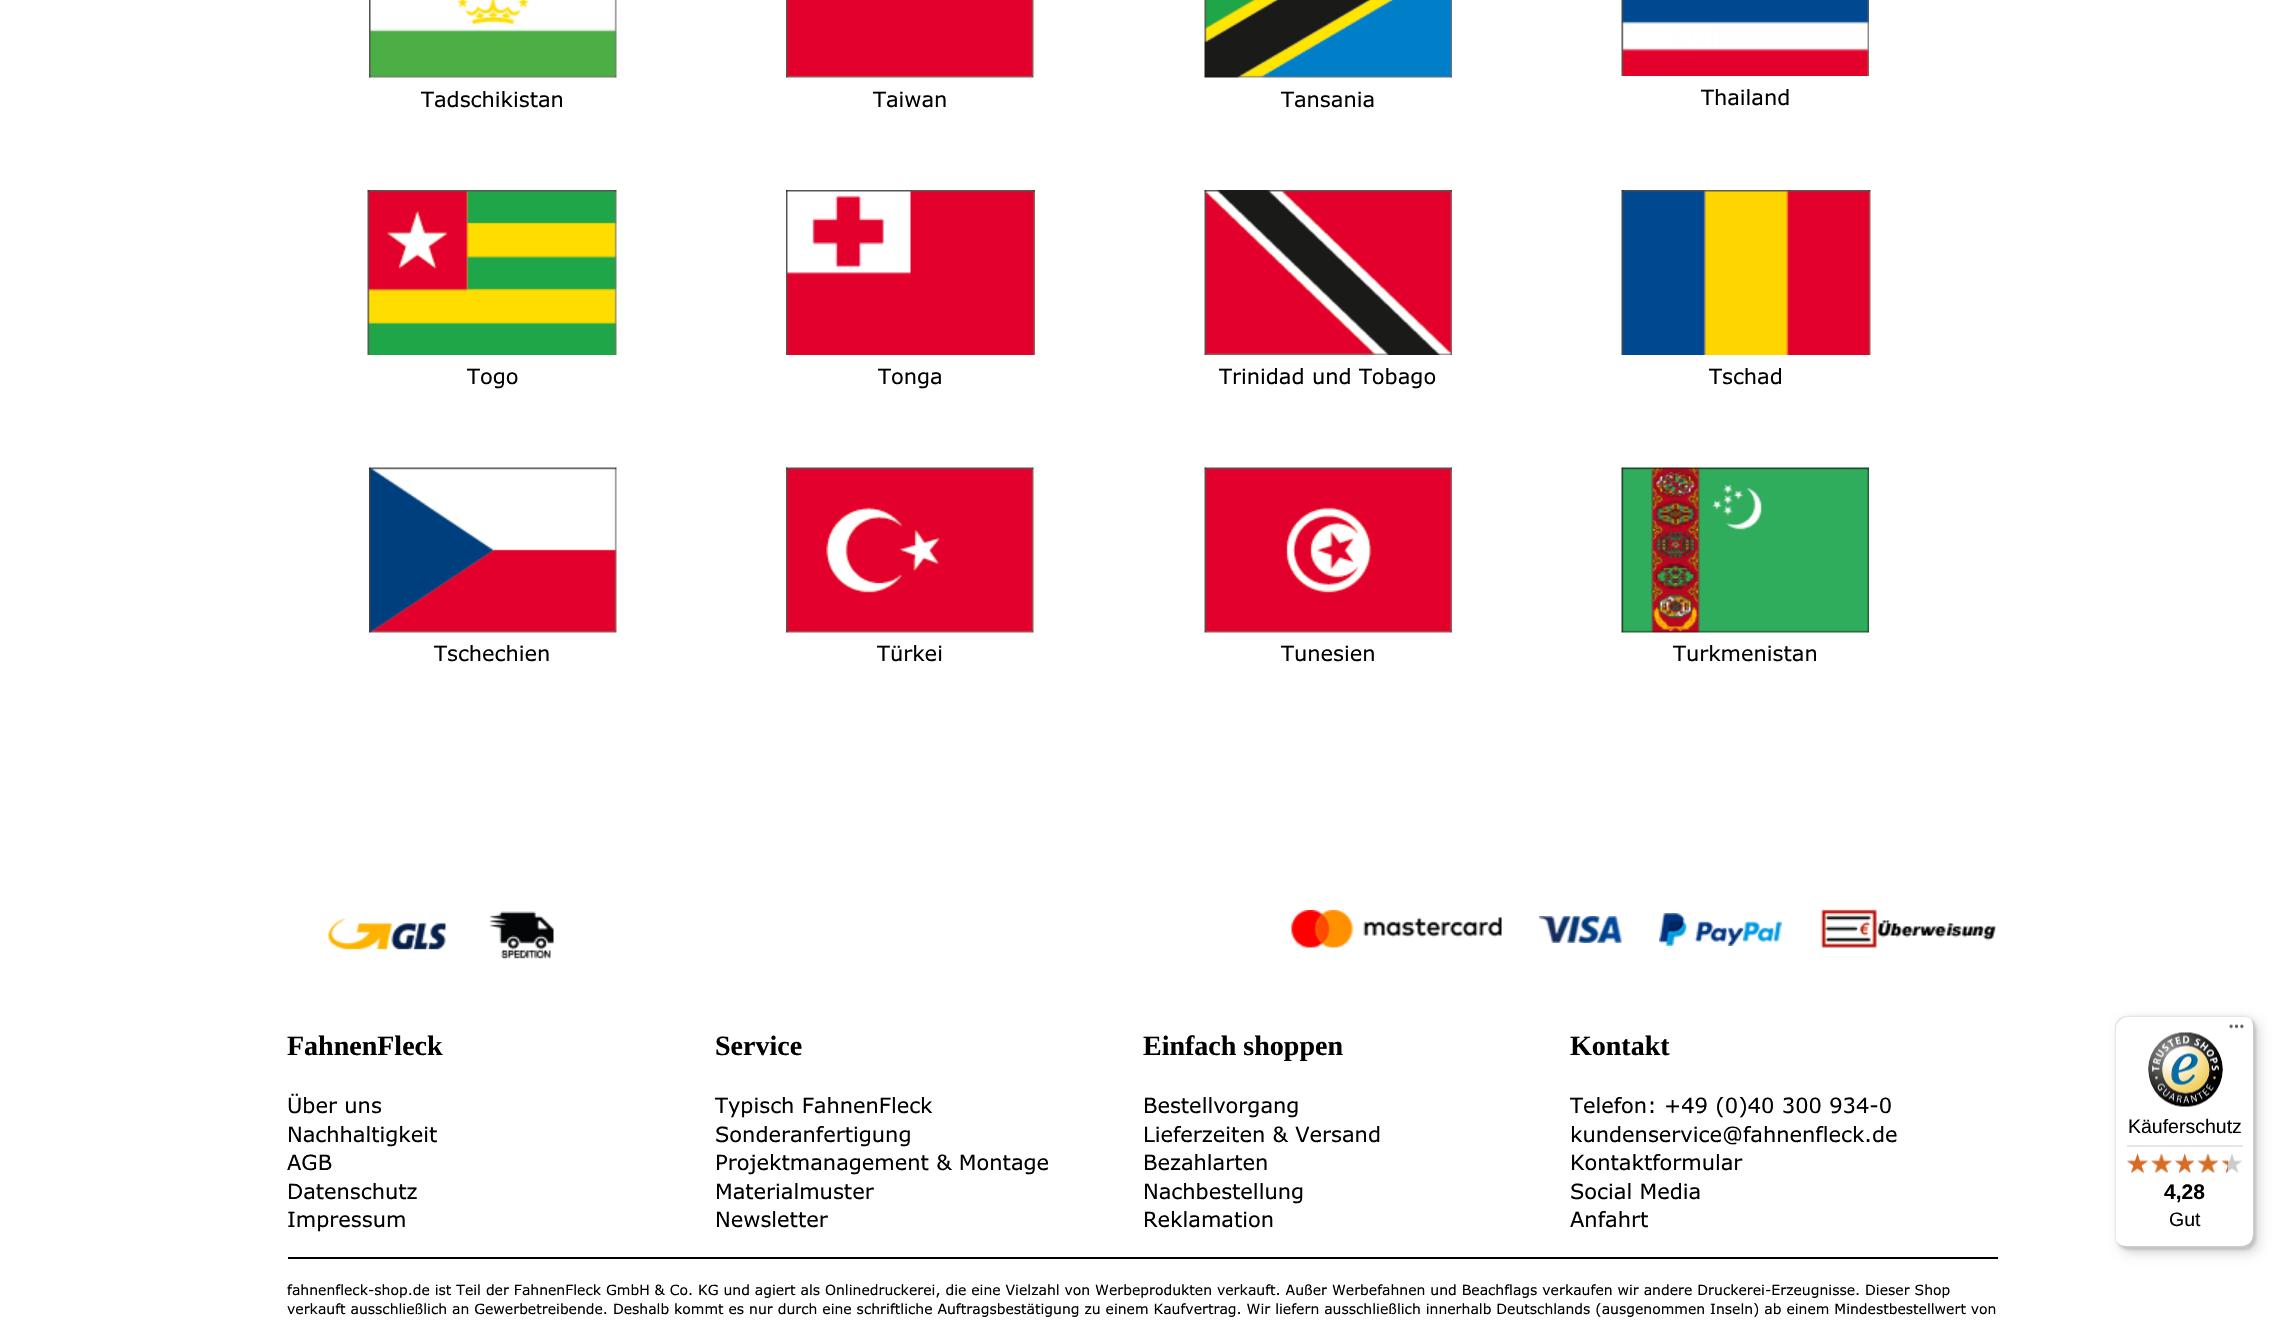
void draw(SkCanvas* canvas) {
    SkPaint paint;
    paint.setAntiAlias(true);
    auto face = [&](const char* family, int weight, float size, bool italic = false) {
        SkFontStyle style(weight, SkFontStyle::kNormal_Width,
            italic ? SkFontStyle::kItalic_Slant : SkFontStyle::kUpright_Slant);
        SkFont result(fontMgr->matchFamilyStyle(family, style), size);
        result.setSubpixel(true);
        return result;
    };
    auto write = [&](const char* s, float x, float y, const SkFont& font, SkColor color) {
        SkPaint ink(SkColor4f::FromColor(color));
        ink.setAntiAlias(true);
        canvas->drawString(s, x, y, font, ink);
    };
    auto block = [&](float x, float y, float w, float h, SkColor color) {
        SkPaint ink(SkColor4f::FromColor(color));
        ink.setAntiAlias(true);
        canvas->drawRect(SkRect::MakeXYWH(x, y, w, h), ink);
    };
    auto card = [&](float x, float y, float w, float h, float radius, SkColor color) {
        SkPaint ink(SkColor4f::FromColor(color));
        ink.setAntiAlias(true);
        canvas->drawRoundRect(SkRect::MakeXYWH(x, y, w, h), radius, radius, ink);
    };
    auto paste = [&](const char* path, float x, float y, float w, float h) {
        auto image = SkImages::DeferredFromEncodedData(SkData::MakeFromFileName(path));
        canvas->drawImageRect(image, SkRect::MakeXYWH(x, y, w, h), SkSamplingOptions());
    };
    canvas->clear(SK_ColorWHITE);
    paste("pic1.png", 369, 0, 248, 78);
    auto kFont1 = face("Verdana", 400, 21);
    write("Tadschikistan", 421, 107, kFont1, SK_ColorBLACK);
    paste("pic2.png", 786, 0, 248, 78);
    write("Taiwan", 873, 107, kFont1, SK_ColorBLACK);
    paste("pic3.png", 1204, 0, 248, 78);
    write("Tansania", 1281, 107, kFont1, SK_ColorBLACK);
    paste("pic4.png", 1621, 0, 248, 76);
    write("Thailand", 1701, 105, kFont1, SK_ColorBLACK);
    paste("pic5.png", 367, 190, 250, 165);
    write("Togo", 467, 384, kFont1, SK_ColorBLACK);
    paste("pic6.png", 786, 190, 249, 165);
    write("Tonga", 878, 384, kFont1, SK_ColorBLACK);
    paste("pic7.png", 1204, 190, 248, 165);
    write("Trinidad und Tobago", 1219, 384, kFont1, SK_ColorBLACK);
    paste("pic8.png", 1621, 190, 250, 165);
    write("Tschad", 1709, 384, kFont1, SK_ColorBLACK);
    paste("pic9.png", 369, 467, 248, 166);
    write("Tschechien", 434, 661, kFont1, SK_ColorBLACK);
    paste("pic10.png", 786, 467, 248, 166);
    write("Türkei", 877, 661, kFont1, SK_ColorBLACK);
    paste("pic11.png", 1204, 467, 248, 166);
    write("Tunesien", 1281, 661, kFont1, SK_ColorBLACK);
    paste("pic12.png", 1621, 467, 248, 166);
    write("Turkmenistan", 1673, 661, kFont1, SK_ColorBLACK);
    paste("pic13.png", 328, 918, 118, 32);
    paste("pic14.png", 489, 911, 65, 48);
    paste("pic15.png", 1291, 910, 211, 38);
    paste("pic16.png", 1539, 916, 83, 27);
    paste("pic17.png", 1659, 913, 123, 33);
    paste("pic18.png", 1820, 909, 177, 39);
    block(288, 1257, 1710, 2, SK_ColorBLACK);
    auto kFont2 = face("Liberation Serif", 700, 28);
    write("FahnenFleck", 287, 1055, kFont2, SK_ColorBLACK);
    write("Über uns", 287, 1113, kFont1, SK_ColorBLACK);
    write("Nachhaltigkeit", 287, 1142, kFont1, SK_ColorBLACK);
    write("AGB", 287, 1170, kFont1, SK_ColorBLACK);
    write("Datenschutz", 287, 1199, kFont1, SK_ColorBLACK);
    write("Impressum", 287, 1227, kFont1, SK_ColorBLACK);
    write("Service", 715, 1055, kFont2, SK_ColorBLACK);
    write("Typisch FahnenFleck", 715, 1113, kFont1, SK_ColorBLACK);
    write("Sonderanfertigung", 715, 1142, kFont1, SK_ColorBLACK);
    write("Projektmanagement & Montage", 715, 1170, kFont1, SK_ColorBLACK);
    write("Materialmuster", 715, 1199, kFont1, SK_ColorBLACK);
    write("Newsletter", 715, 1227, kFont1, SK_ColorBLACK);
    write("Einfach shoppen", 1143, 1055, kFont2, SK_ColorBLACK);
    write("Bestellvorgang", 1143, 1113, kFont1, SK_ColorBLACK);
    write("Lieferzeiten & Versand", 1143, 1142, kFont1, SK_ColorBLACK);
    write("Bezahlarten", 1143, 1170, kFont1, SK_ColorBLACK);
    write("Nachbestellung", 1143, 1199, kFont1, SK_ColorBLACK);
    write("Reklamation", 1143, 1227, kFont1, SK_ColorBLACK);
    write("Kontakt", 1570, 1055, kFont2, SK_ColorBLACK);
    write("Telefon: +49 (0)40 300 934-0", 1570, 1113, kFont1, SK_ColorBLACK);
    write("kundenservice@fahnenfleck.de", 1570, 1142, kFont1, SK_ColorBLACK);
    write("Kontaktformular", 1570, 1170, kFont1, SK_ColorBLACK);
    write("Social Media", 1570, 1199, kFont1, SK_ColorBLACK);
    write("Anfahrt", 1570, 1227, kFont1, SK_ColorBLACK);
    auto kFont3 = face("Verdana", 400, 14);
    write("fahnenfleck-shop.de ist Teil der FahnenFleck GmbH & Co. KG und agiert als Onlinedruckerei, die eine Vielzahl von Werbeprodukten verkauft. Außer Werbefahnen und Beachflags verkaufen wir andere Druckerei-Erzeugnisse. Dieser Shop", 287, 1295, kFont3, SK_ColorBLACK);
    write("verkauft ausschließlich an Gewerbetreibende. Deshalb kommt es nur durch eine schriftliche Auftragsbestätigung zu einem Kaufvertrag. Wir liefern ausschließlich innerhalb Deutschlands (ausgenommen Inseln) ab einem Mindestbestellwert von", 287, 1314, kFont3, SK_ColorBLACK);
    paint.setColor(SkColorSetARGB(38, 0, 0, 0));
    paint.setMaskFilter(SkMaskFilter::MakeBlur(kNormal_SkBlurStyle, 6));
    canvas->drawRoundRect(SkRect::MakeXYWH(2120, 1020, 139, 233), 12, 12, paint);
    paint.setMaskFilter(nullptr);
    paint.setMaskFilter(SkMaskFilter::MakeBlur(kNormal_SkBlurStyle, 1.5f));
    canvas->drawRoundRect(SkRect::MakeXYWH(2117, 1017, 139, 233), 12, 12, paint);
    paint.setMaskFilter(nullptr);
    card(2115, 1016, 140, 232, 12, SK_ColorWHITE);
    paint.setColor(SkColorSetRGB(229, 229, 229));
    canvas->drawPath(SkPathBuilder().moveTo(2128, 1017).lineTo(2244, 1017).cubicTo(2247, 1017, 2249, 1018, 2251, 1019).cubicTo(2249, 1017, 2246, 1016, 2243, 1016).lineTo(2127, 1016).cubicTo(2120, 1016, 2115, 1021, 2115, 1028).lineTo(2115, 1236).cubicTo(2115, 1239, 2116, 1241, 2118, 1243).cubicTo(2117, 1242, 2116, 1240, 2116, 1238).lineTo(2116, 1029).cubicTo(2116, 1022, 2122, 1017, 2128, 1017).close().detach(), paint);
    paint.setColor(SkColorSetARGB(51, 0, 0, 0));
    canvas->drawPath(SkPathBuilder().moveTo(2116, 1241).cubicTo(2118, 1245, 2122, 1248, 2127, 1248).lineTo(2243, 1248).cubicTo(2250, 1248, 2255, 1243, 2255, 1236).lineTo(2255, 1028).cubicTo(2255, 1024, 2253, 1021, 2251, 1019).cubicTo(2252, 1021, 2253, 1023, 2253, 1026).lineTo(2253, 1234).cubicTo(2253, 1241, 2248, 1246, 2241, 1246).lineTo(2126, 1246).cubicTo(2122, 1246, 2118, 1244, 2116, 1241).close().detach(), paint);
    paint.setColor(SkColorSetARGB(51, 50, 50, 50));
    canvas->drawPath(SkPathBuilder().moveTo(2119, 1245).cubicTo(2121, 1247, 2124, 1248, 2127, 1248).lineTo(2243, 1248).cubicTo(2250, 1248, 2255, 1243, 2255, 1236).lineTo(2255, 1028).cubicTo(2255, 1024, 2253, 1021, 2251, 1019).cubicTo(2253, 1021, 2254, 1024, 2254, 1027).lineTo(2254, 1235).cubicTo(2254, 1242, 2248, 1247, 2242, 1247).lineTo(2126, 1247).cubicTo(2123, 1247, 2121, 1246, 2119, 1245).close().detach(), paint);
    paint.setColor(SkColorSetARGB(77, 255, 255, 255));
    canvas->drawPath(SkPathBuilder().moveTo(2118, 1244).cubicTo(2120, 1246, 2123, 1248, 2127, 1248).lineTo(2243, 1248).cubicTo(2250, 1248, 2255, 1243, 2255, 1236).lineTo(2255, 1028).cubicTo(2255, 1024, 2253, 1021, 2251, 1019).cubicTo(2253, 1021, 2254, 1024, 2254, 1027).lineTo(2254, 1235).cubicTo(2254, 1242, 2248, 1247, 2242, 1247).lineTo(2126, 1247).cubicTo(2123, 1247, 2120, 1246, 2118, 1244).close().detach(), paint);
    paste("pic19.png", 2229, 1024, 15, 5);
    paste("pic20.png", 2148, 1032, 75, 75);
    auto kFont4 = face("Liberation Sans", 400, 19.5f);
    write("Käuferschutz", 2128, 1133, kFont4, SK_ColorBLACK);
    block(2127, 1145, 116, 2, SkColorSetRGB(229, 229, 229));
    paste("pic21.png", 2127, 1153, 21, 20);
    paste("pic22.png", 2151, 1154, 21, 19);
    paste("pic23.png", 2175, 1153, 19, 20);
    paste("pic24.png", 2198, 1154, 20, 19);
    paste("pic25.png", 2222, 1153, 20, 20);
    paste("pic26.png", 2127, 1153, 21, 20);
    paste("pic27.png", 2151, 1153, 21, 20);
    paste("pic28.png", 2175, 1153, 19, 20);
    paste("pic29.png", 2197, 1153, 22, 20);
    paste("pic30.png", 2222, 1160, 6, 13);
    auto kFont5 = face("Liberation Sans", 700, 21);
    write("4,28", 2164, 1199, kFont5, SK_ColorBLACK);
    write("Gut", 2169, 1226, kFont4, SK_ColorBLACK);
}
